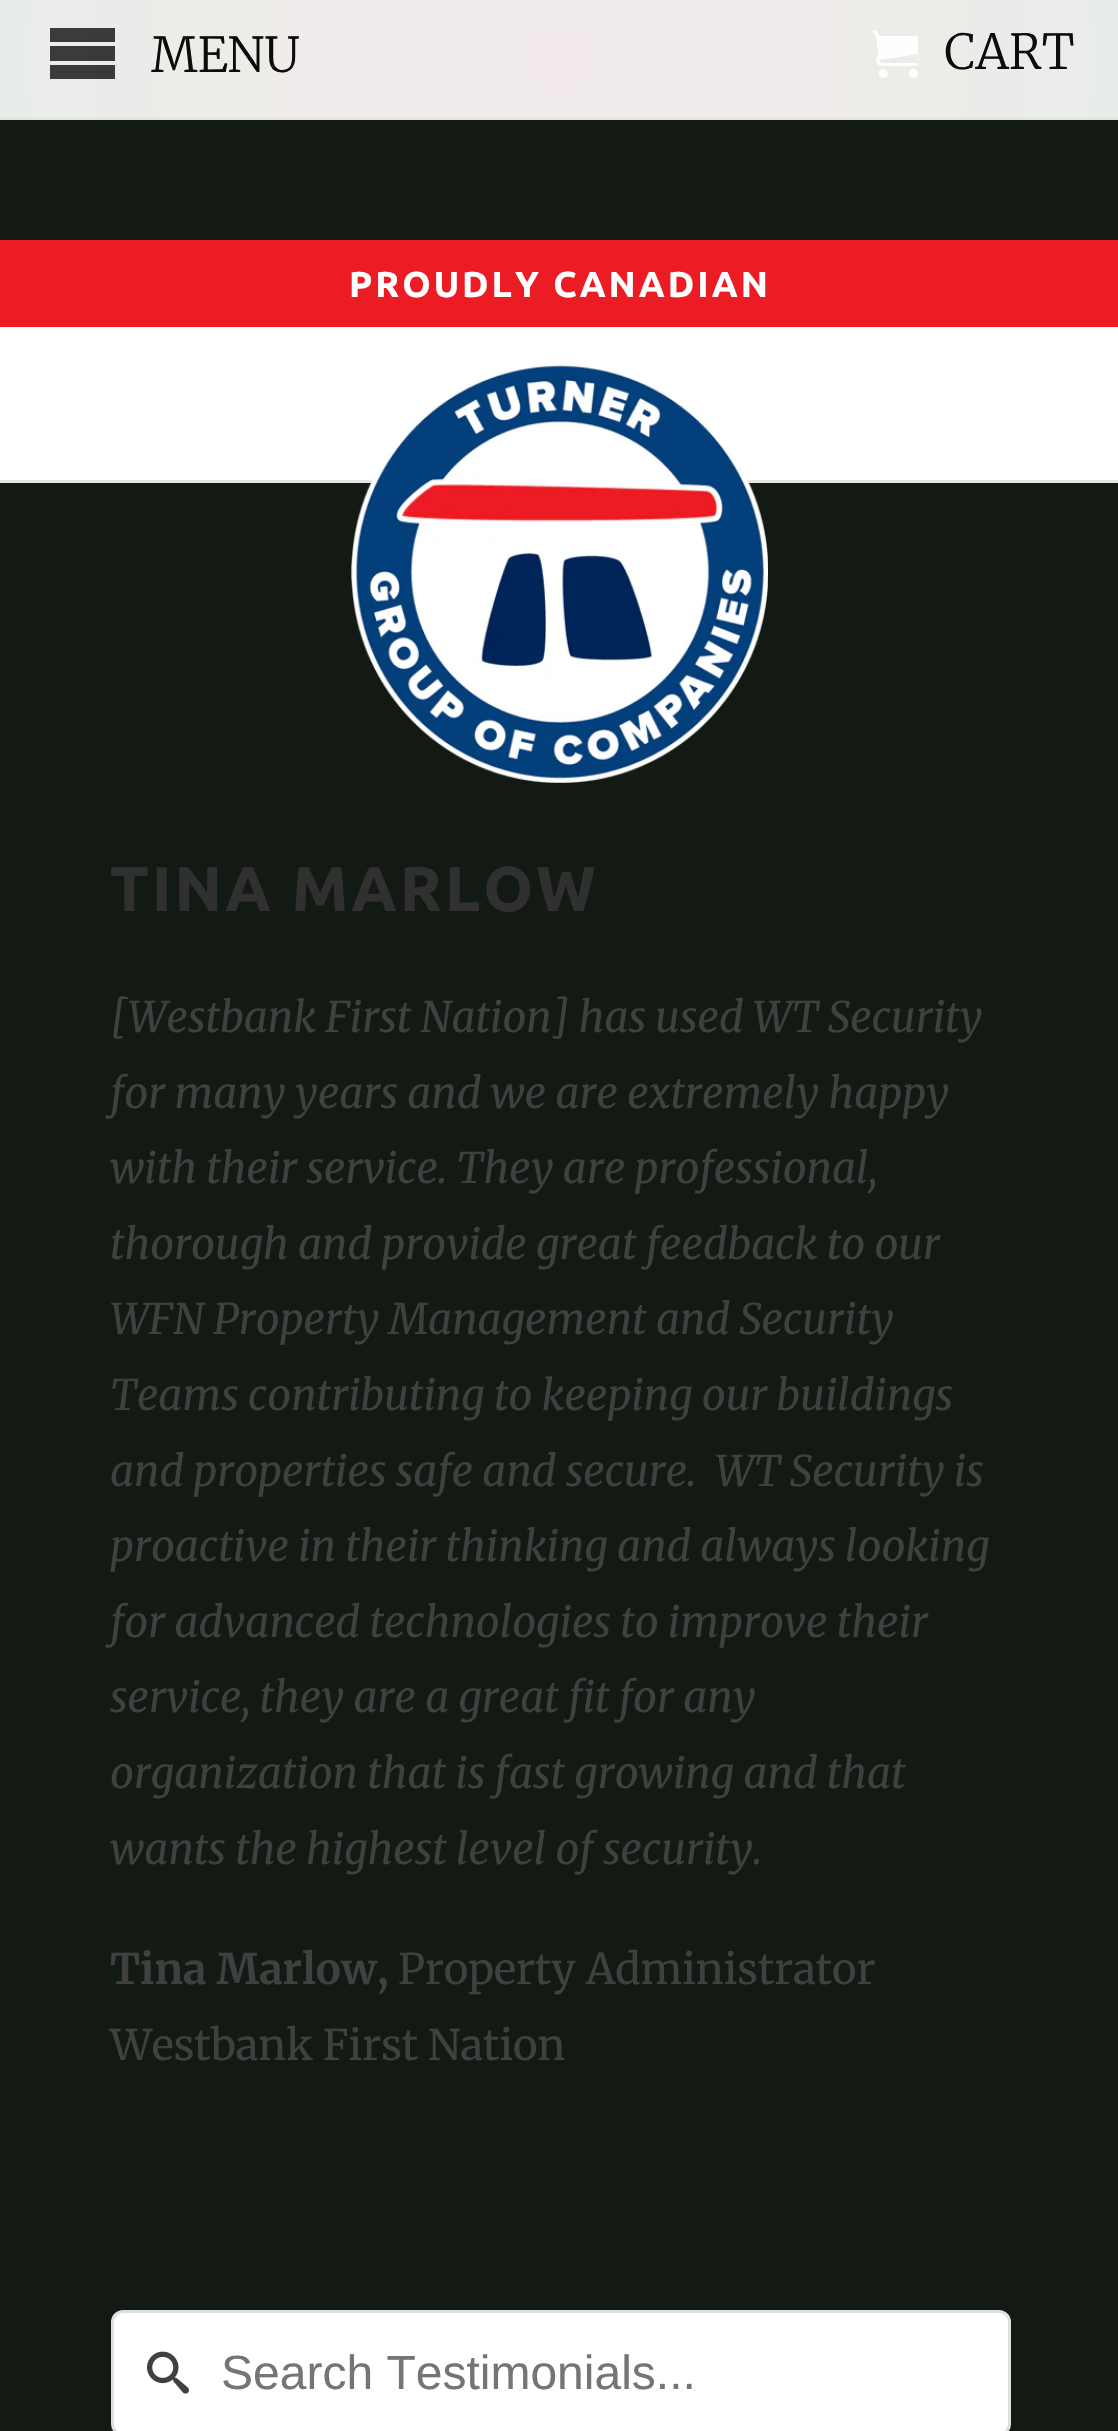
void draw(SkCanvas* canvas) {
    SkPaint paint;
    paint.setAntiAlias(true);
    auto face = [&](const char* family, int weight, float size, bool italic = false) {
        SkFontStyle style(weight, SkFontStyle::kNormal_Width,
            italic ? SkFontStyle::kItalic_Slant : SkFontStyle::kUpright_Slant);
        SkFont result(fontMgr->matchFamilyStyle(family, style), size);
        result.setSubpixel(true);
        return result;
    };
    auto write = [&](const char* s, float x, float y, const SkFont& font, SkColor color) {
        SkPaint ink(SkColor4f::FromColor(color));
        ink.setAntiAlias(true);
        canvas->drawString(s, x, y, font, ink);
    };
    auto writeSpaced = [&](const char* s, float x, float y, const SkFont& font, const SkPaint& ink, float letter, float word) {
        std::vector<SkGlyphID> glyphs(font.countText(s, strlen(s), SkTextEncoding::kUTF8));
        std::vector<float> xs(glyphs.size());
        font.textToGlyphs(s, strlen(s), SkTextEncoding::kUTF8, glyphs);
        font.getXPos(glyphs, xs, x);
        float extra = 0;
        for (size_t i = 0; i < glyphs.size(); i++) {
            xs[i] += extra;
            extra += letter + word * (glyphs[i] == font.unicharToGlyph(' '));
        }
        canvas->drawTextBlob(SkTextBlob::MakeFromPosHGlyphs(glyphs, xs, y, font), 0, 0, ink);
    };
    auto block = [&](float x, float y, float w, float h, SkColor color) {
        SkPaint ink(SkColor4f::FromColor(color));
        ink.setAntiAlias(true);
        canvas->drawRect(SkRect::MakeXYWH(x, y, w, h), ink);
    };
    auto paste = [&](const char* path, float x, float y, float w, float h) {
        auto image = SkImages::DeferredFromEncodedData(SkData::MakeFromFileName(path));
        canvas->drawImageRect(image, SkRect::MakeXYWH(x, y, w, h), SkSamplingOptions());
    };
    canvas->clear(SkColorSetRGB(19, 25, 19));
    {
        const SkColor colors[] = {SkColorSetRGB(242, 234, 234), SkColorSetRGB(233, 237, 233)};
        const float stops[] = {0, 1};
        paint.setShader(SkGradientShader::MakeRadial({560, 60}, 563, colors, stops, 2, SkTileMode::kClamp));
        paint.setAlpha(255);
    }
    canvas->drawRect(SkRect::MakeXYWH(0, 0, 1118, 117), paint);
    {
        const SkColor colors[] = {SkColorSetRGB(230, 229, 229), SkColorSetRGB(229, 229, 229)};
        const float stops[] = {0, 1};
        paint.setShader(SkGradientShader::MakeRadial({560, 60}, 563, colors, stops, 2, SkTileMode::kClamp));
        paint.setAlpha(255);
    }
    canvas->drawRect(SkRect::MakeXYWH(0, 117, 1118, 3), paint);
    paint.setShader(nullptr);
    paint.setColor(SkColorSetARGB(242, 48, 48, 48));
    canvas->drawPath(SkPathBuilder().moveTo(50, 28).lineTo(50, 42).lineTo(115, 42).lineTo(115, 28).close().moveTo(50, 46).lineTo(50, 61).lineTo(115, 61).lineTo(115, 46).close().moveTo(50, 65).lineTo(50, 79).lineTo(115, 79).lineTo(115, 65).close().detach(), paint);
    auto kFont1 = face("Merriweather", 300, 48);
    write("MENU", 151, 72, kFont1, SkColorSetRGB(12, 12, 12));
    paste("pic1.png", 873, 30, 45, 48);
    write("CART", 944, 69, kFont1, SkColorSetRGB(12, 12, 12));
    block(0, 327, 1118, 153, SK_ColorWHITE);
    block(0, 480, 1118, 3, SkColorSetRGB(229, 229, 229));
    block(0, 240, 1118, 87, SkColorSetRGB(236, 28, 36));
    auto kFont2 = face("Ubuntu", 700, 36);
    paint.setColor(SK_ColorWHITE);
    writeSpaced("PROUDLY CANADIAN", 349, 297, kFont2, paint, 3, 0);
    paste("pic2.png", 351, 361, 417, 422);
    auto kFont3 = face("Ubuntu", 700, 63);
    paint.setColor(SkColorSetRGB(48, 48, 48));
    writeSpaced("TINA MARLOW", 110, 911, kFont3, paint, 3, 0);
    auto kFont4 = face("Merriweather", 400, 42, true);
    write("[Westbank First Nation] has used WT Security", 110, 1032, kFont4, SkColorSetRGB(64, 64, 64));
    write("for many years and we are extremely happy", 110, 1108, kFont4, SkColorSetRGB(64, 64, 64));
    write("with their service. They are professional,", 110, 1183, kFont4, SkColorSetRGB(64, 64, 64));
    write("thorough and provide great feedback to our", 110, 1259, kFont4, SkColorSetRGB(64, 64, 64));
    write("WFN Property Management and Security", 110, 1334, kFont4, SkColorSetRGB(64, 64, 64));
    write("Teams contributing to keeping our buildings", 110, 1410, kFont4, SkColorSetRGB(64, 64, 64));
    write("and properties safe and secure.  WT Security is", 110, 1486, kFont4, SkColorSetRGB(64, 64, 64));
    write("proactive in their thinking and always looking", 110, 1561, kFont4, SkColorSetRGB(64, 64, 64));
    write("for advanced technologies to improve their", 110, 1637, kFont4, SkColorSetRGB(64, 64, 64));
    write("service, they are a great fit for any", 110, 1712, kFont4, SkColorSetRGB(64, 64, 64));
    write("organization that is fast growing and that", 110, 1788, kFont4, SkColorSetRGB(64, 64, 64));
    write("wants the highest level of security.", 110, 1864, kFont4, SkColorSetRGB(64, 64, 64));
    auto kFont5 = face("Merriweather", 700, 42);
    write("Tina Marlow,", 110, 1984, kFont5, SkColorSetRGB(64, 64, 64));
    auto kFont6 = face("Merriweather", 400, 42);
    write("Property Administrator", 398, 1984, kFont6, SkColorSetRGB(64, 64, 64));
    write("Westbank First Nation", 110, 2060, kFont6, SkColorSetRGB(64, 64, 64));
    paint.setColor(SK_ColorWHITE);
    canvas->drawRoundRect(SkRect::MakeXYWH(112.5f, 2311.5f, 897, 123), 10.5f, 10.5f, paint);
    paint.setStyle(SkPaint::kStroke_Style);
    paint.setStrokeWidth(3);
    paint.setColor(SkColorSetRGB(220, 224, 224));
    canvas->drawRoundRect(SkRect::MakeXYWH(112.5f, 2311.5f, 897, 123), 10.5f, 10.5f, paint);
    paste("pic3.png", 147, 2351, 42, 43);
    auto kFont7 = face("Liberation Sans", 400, 48);
    write("Search Testimonials...", 221, 2389, kFont7, SkColorSetRGB(117, 117, 117));
}
